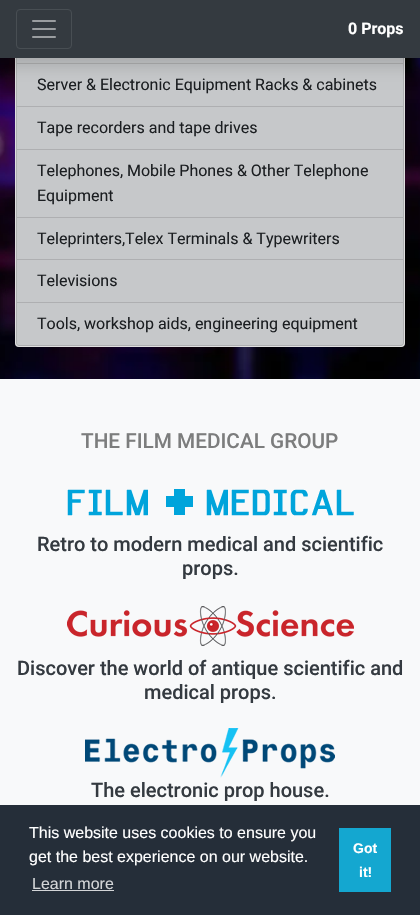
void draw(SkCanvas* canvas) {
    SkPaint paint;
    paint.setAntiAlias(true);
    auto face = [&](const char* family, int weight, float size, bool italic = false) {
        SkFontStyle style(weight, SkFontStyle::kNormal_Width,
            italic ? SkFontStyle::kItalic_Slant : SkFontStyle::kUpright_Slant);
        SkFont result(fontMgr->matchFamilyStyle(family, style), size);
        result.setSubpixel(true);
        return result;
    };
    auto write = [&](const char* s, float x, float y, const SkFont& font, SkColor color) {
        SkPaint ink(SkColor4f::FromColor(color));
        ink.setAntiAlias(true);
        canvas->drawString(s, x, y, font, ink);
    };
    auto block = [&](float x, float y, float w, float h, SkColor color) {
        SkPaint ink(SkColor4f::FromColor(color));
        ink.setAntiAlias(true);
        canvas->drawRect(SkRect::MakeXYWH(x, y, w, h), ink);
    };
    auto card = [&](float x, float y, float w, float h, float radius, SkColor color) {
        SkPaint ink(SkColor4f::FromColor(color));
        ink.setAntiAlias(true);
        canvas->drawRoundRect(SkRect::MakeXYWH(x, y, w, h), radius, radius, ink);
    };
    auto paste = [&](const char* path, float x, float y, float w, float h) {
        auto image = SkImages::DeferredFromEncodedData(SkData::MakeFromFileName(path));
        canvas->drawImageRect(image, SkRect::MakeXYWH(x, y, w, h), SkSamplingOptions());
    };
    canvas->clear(SK_ColorWHITE);
    paste("pic1.png", 0, 58, 420, 321);
    card(15, -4, 390, 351, 4, SK_ColorWHITE);
    paint.setStyle(SkPaint::kStroke_Style);
    paint.setStrokeWidth(1);
    paint.setColor(SkColorSetARGB(31, 0, 0, 0));
    canvas->drawRoundRect(SkRect::MakeXYWH(15.5f, -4.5f, 389, 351), 3.5f, 3.5f, paint);
    block(16, 58, 388, 245, SkColorSetRGB(198, 200, 202));
    paint.setStyle(SkPaint::kFill_Style);
    paint.setColor(SkColorSetRGB(173, 175, 177));
    canvas->drawPath(SkPathBuilder().moveTo(404, -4).lineTo(404, 64).lineTo(403, 63).lineTo(403, -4).close().detach(), paint);
    paint.setColor(SkColorSetARGB(31, 0, 0, 0));
    canvas->drawPath(SkPathBuilder().moveTo(404, 64).lineTo(16, 64).lineTo(17, 63).lineTo(403, 63).close().detach(), paint);
    canvas->drawPath(SkPathBuilder().moveTo(16, 64).lineTo(16, -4).lineTo(17, -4).lineTo(17, 63).close().detach(), paint);
    paint.setColor(SkColorSetRGB(173, 175, 177));
    canvas->drawPath(SkPathBuilder().moveTo(404, 64).lineTo(404, 107).lineTo(403, 106).lineTo(403, 64).close().detach(), paint);
    paint.setColor(SkColorSetARGB(31, 0, 0, 0));
    canvas->drawPath(SkPathBuilder().moveTo(404, 107).lineTo(16, 107).lineTo(17, 106).lineTo(403, 106).close().detach(), paint);
    canvas->drawPath(SkPathBuilder().moveTo(16, 107).lineTo(16, 64).lineTo(17, 64).lineTo(17, 106).close().detach(), paint);
    paint.setColor(SkColorSetARGB(38, 0, 0, 0));
    paint.setMaskFilter(SkMaskFilter::MakeBlur(kNormal_SkBlurStyle, 8));
    canvas->drawRect(SkRect::MakeXYWH(0, 8, 420, 58), paint);
    paint.setMaskFilter(nullptr);
    block(0, 0, 420, 58, SkColorSetRGB(52, 58, 64));
    paint.setStyle(SkPaint::kStroke_Style);
    paint.setColor(SkColorSetRGB(72, 78, 83));
    canvas->drawRoundRect(SkRect::MakeXYWH(16.5f, 9.5f, 55, 39), 3.5f, 3.5f, paint);
    paste("pic2.png", 32, 20, 24, 18);
    auto kFont1 = face("Roboto", 700, 16);
    write("0 Props", 348, 34, kFont1, SK_ColorWHITE);
    auto kFont2 = face("Roboto", 400, 16);
    write("Server & Electronic Equipment Racks & cabinets", 37, 90, kFont2, SkColorSetRGB(27, 30, 33));
    paint.setStyle(SkPaint::kFill_Style);
    paint.setColor(SkColorSetRGB(173, 175, 177));
    canvas->drawPath(SkPathBuilder().moveTo(404, 107).lineTo(404, 150).lineTo(403, 149).lineTo(403, 107).close().detach(), paint);
    paint.setColor(SkColorSetARGB(31, 0, 0, 0));
    canvas->drawPath(SkPathBuilder().moveTo(404, 150).lineTo(16, 150).lineTo(17, 149).lineTo(403, 149).close().detach(), paint);
    canvas->drawPath(SkPathBuilder().moveTo(16, 150).lineTo(16, 107).lineTo(17, 107).lineTo(17, 149).close().detach(), paint);
    write("Tape recorders and tape drives", 37, 133, kFont2, SkColorSetRGB(27, 30, 33));
    paint.setColor(SkColorSetRGB(173, 175, 177));
    canvas->drawPath(SkPathBuilder().moveTo(404, 150).lineTo(404, 218).lineTo(403, 217).lineTo(403, 150).close().detach(), paint);
    paint.setColor(SkColorSetARGB(31, 0, 0, 0));
    canvas->drawPath(SkPathBuilder().moveTo(404, 218).lineTo(16, 218).lineTo(17, 217).lineTo(403, 217).close().detach(), paint);
    canvas->drawPath(SkPathBuilder().moveTo(16, 218).lineTo(16, 150).lineTo(17, 150).lineTo(17, 217).close().detach(), paint);
    write("Telephones, Mobile Phones & Other Telephone", 37, 176, kFont2, SkColorSetRGB(27, 30, 33));
    write("Equipment", 37, 201, kFont2, SkColorSetRGB(27, 30, 33));
    paint.setColor(SkColorSetRGB(173, 175, 177));
    canvas->drawPath(SkPathBuilder().moveTo(404, 218).lineTo(404, 260).lineTo(403, 259).lineTo(403, 218).close().detach(), paint);
    paint.setColor(SkColorSetARGB(31, 0, 0, 0));
    canvas->drawPath(SkPathBuilder().moveTo(404, 260).lineTo(16, 260).lineTo(17, 259).lineTo(403, 259).close().detach(), paint);
    canvas->drawPath(SkPathBuilder().moveTo(16, 260).lineTo(16, 218).lineTo(17, 218).lineTo(17, 259).close().detach(), paint);
    write("Teleprinters,Telex Terminals & Typewriters", 37, 244, kFont2, SkColorSetRGB(27, 30, 33));
    paint.setColor(SkColorSetRGB(173, 175, 177));
    canvas->drawPath(SkPathBuilder().moveTo(404, 260).lineTo(404, 303).lineTo(403, 302).lineTo(403, 260).close().detach(), paint);
    paint.setColor(SkColorSetARGB(31, 0, 0, 0));
    canvas->drawPath(SkPathBuilder().moveTo(404, 303).lineTo(16, 303).lineTo(17, 302).lineTo(403, 302).close().detach(), paint);
    canvas->drawPath(SkPathBuilder().moveTo(16, 303).lineTo(16, 260).lineTo(17, 260).lineTo(17, 302).close().detach(), paint);
    write("Televisions", 37, 286, kFont2, SkColorSetRGB(27, 30, 33));
    paint.setColor(SkColorSetRGB(198, 200, 202));
    canvas->drawPath(SkPathBuilder().moveTo(16, 303).lineTo(404, 303).lineTo(404, 343).cubicTo(404, 344.5f, 402.5f, 346, 401, 346).lineTo(19, 346).cubicTo(17.5f, 346, 16, 344.5f, 16, 343).close().detach(), paint);
    paint.setColor(SkColorSetARGB(31, 0, 0, 0));
    canvas->drawPath(SkPathBuilder(SkPathFillType::kEvenOdd).moveTo(16, 303).lineTo(404, 303).lineTo(404, 343).cubicTo(404, 345, 403, 346, 401, 346).lineTo(19, 346).cubicTo(17, 346, 16, 345, 16, 343).close().moveTo(17, 303).lineTo(403, 303).lineTo(403, 343).cubicTo(403, 344, 402, 345, 401, 345).lineTo(19, 345).cubicTo(18, 345, 17, 344, 17, 343).close().detach(), paint);
    write("Tools, workshop aids, engineering equipment", 37, 329, kFont2, SkColorSetRGB(27, 30, 33));
    block(0, 379, 420, 426, SkColorSetRGB(248, 249, 250));
    auto kFont3 = face("Roboto", 500, 20.75f);
    write("THE FILM MEDICAL GROUP", 81, 448, kFont3, SkColorSetRGB(124, 125, 125));
    paste("pic3.png", 67, 489, 287, 27);
    auto kFont4 = face("Roboto", 500, 20);
    write("Retro to modern medical and scientific", 37, 551, kFont4, SkColorSetRGB(52, 58, 64));
    write("props.", 182, 575, kFont4, SkColorSetRGB(52, 58, 64));
    paste("pic4.png", 67, 606, 287, 40);
    write("Discover the world of antique scientific and", 17, 675, kFont4, SkColorSetRGB(52, 58, 64));
    write("medical props.", 144, 699, kFont4, SkColorSetRGB(52, 58, 64));
    paste("pic5.png", 85, 728, 250, 50);
    write("The electronic prop house.", 91, 797, kFont4, SkColorSetRGB(52, 58, 64));
    block(0, 805, 420, 110, SkColorSetRGB(37, 46, 57));
    auto kFont5 = face("Liberation Sans", 400, 16);
    write("This website uses cookies to ensure you", 29, 838, kFont5, SK_ColorWHITE);
    write("get the best experience on our website.", 29, 862, kFont5, SK_ColorWHITE);
    write("Learn more", 32, 889, kFont5, SkColorSetRGB(211, 213, 215));
    block(32, 890, 82, 1, SkColorSetRGB(211, 213, 215));
    block(339, 828, 52, 64, SkColorSetRGB(20, 167, 208));
    auto kFont6 = face("Liberation Sans", 700, 14);
    write("Got", 353, 853, kFont6, SK_ColorWHITE);
    write("it!", 359, 877, kFont6, SK_ColorWHITE);
}
